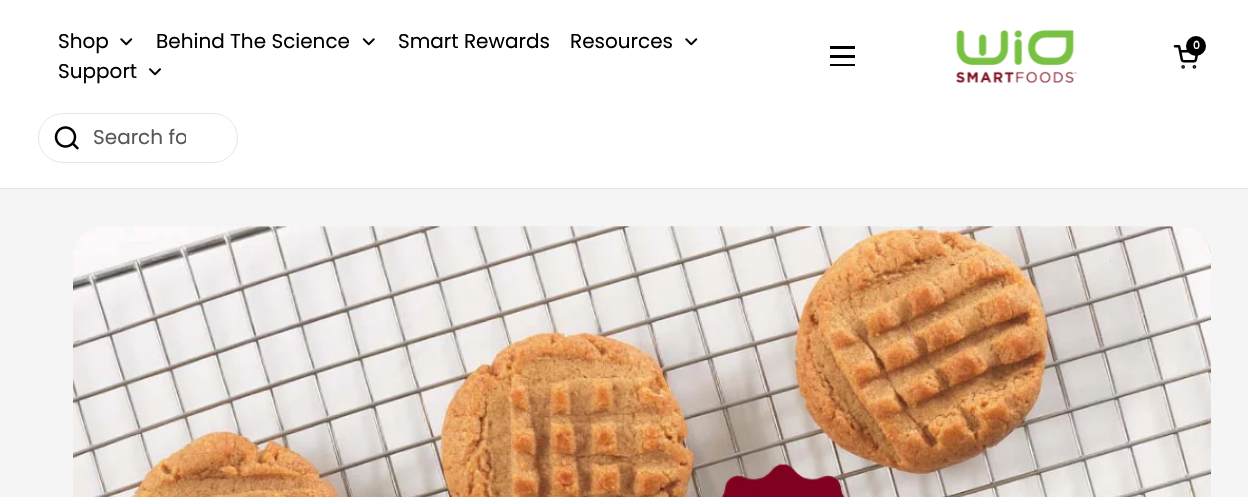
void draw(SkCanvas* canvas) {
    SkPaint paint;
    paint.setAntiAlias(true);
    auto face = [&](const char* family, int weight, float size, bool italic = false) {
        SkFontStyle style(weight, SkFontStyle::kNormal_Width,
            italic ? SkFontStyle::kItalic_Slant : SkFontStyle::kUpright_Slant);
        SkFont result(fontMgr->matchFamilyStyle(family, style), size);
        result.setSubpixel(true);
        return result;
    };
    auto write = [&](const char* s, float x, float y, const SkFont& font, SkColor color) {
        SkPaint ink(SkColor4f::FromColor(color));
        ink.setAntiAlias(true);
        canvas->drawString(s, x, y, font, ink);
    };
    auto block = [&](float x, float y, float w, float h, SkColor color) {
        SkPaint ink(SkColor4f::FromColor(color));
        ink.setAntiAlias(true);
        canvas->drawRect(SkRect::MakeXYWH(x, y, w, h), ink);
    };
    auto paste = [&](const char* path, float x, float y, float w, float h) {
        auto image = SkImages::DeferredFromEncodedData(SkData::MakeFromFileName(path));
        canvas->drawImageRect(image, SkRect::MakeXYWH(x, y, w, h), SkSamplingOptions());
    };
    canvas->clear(SkColorSetRGB(245, 245, 245));
    block(0, 0, 1248, 188, SK_ColorWHITE);
    auto kFont1 = face("Poppins", 400, 20);
    write("Shop", 58, 48, kFont1, SK_ColorBLACK);
    paste("pic1.png", 120, 38, 13, 8);
    write("Behind The Science", 156, 48, kFont1, SK_ColorBLACK);
    paste("pic2.png", 362, 38, 13, 8);
    write("Smart Rewards", 398, 48, kFont1, SK_ColorBLACK);
    write("Resources", 570, 48, kFont1, SK_ColorBLACK);
    paste("pic1.png", 685, 38, 13, 8);
    write("Support", 58, 78, kFont1, SK_ColorBLACK);
    paste("pic3.png", 149, 68, 12, 8);
    paste("pic4.png", 956, 30, 121, 53);
    paste("pic5.png", 1173, 45, 25, 24);
    paint.setColor(SK_ColorBLACK);
    canvas->drawCircle(1196, 46, 10, paint);
    auto kFont2 = face("Poppins", 500, 11);
    write("0", 1193, 49, kFont2, SK_ColorWHITE);
    block(830, 46, 25, 3, SK_ColorBLACK);
    block(830, 55, 25, 3, SK_ColorBLACK);
    block(830, 64, 25, 2, SK_ColorBLACK);
    block(0, 188, 1248, 1, SkColorSetRGB(230, 230, 230));
    paint.setStyle(SkPaint::kStroke_Style);
    paint.setStrokeWidth(1);
    paint.setColor(SkColorSetRGB(230, 230, 230));
    canvas->drawRoundRect(SkRect::MakeXYWH(38.5f, 113.5f, 199, 49), 24.5f, 24.5f, paint);
    paste("pic6.png", 54, 126, 25, 24);
    canvas->save();
    canvas->clipRect(SkRect::MakeXYWH(93, 123, 93, 31));
    write("Search fo", 93, 144, kFont1, SkColorSetRGB(87, 87, 87));
    canvas->restore();
    paste("pic7.png", 73, 226, 1138, 271);
}
